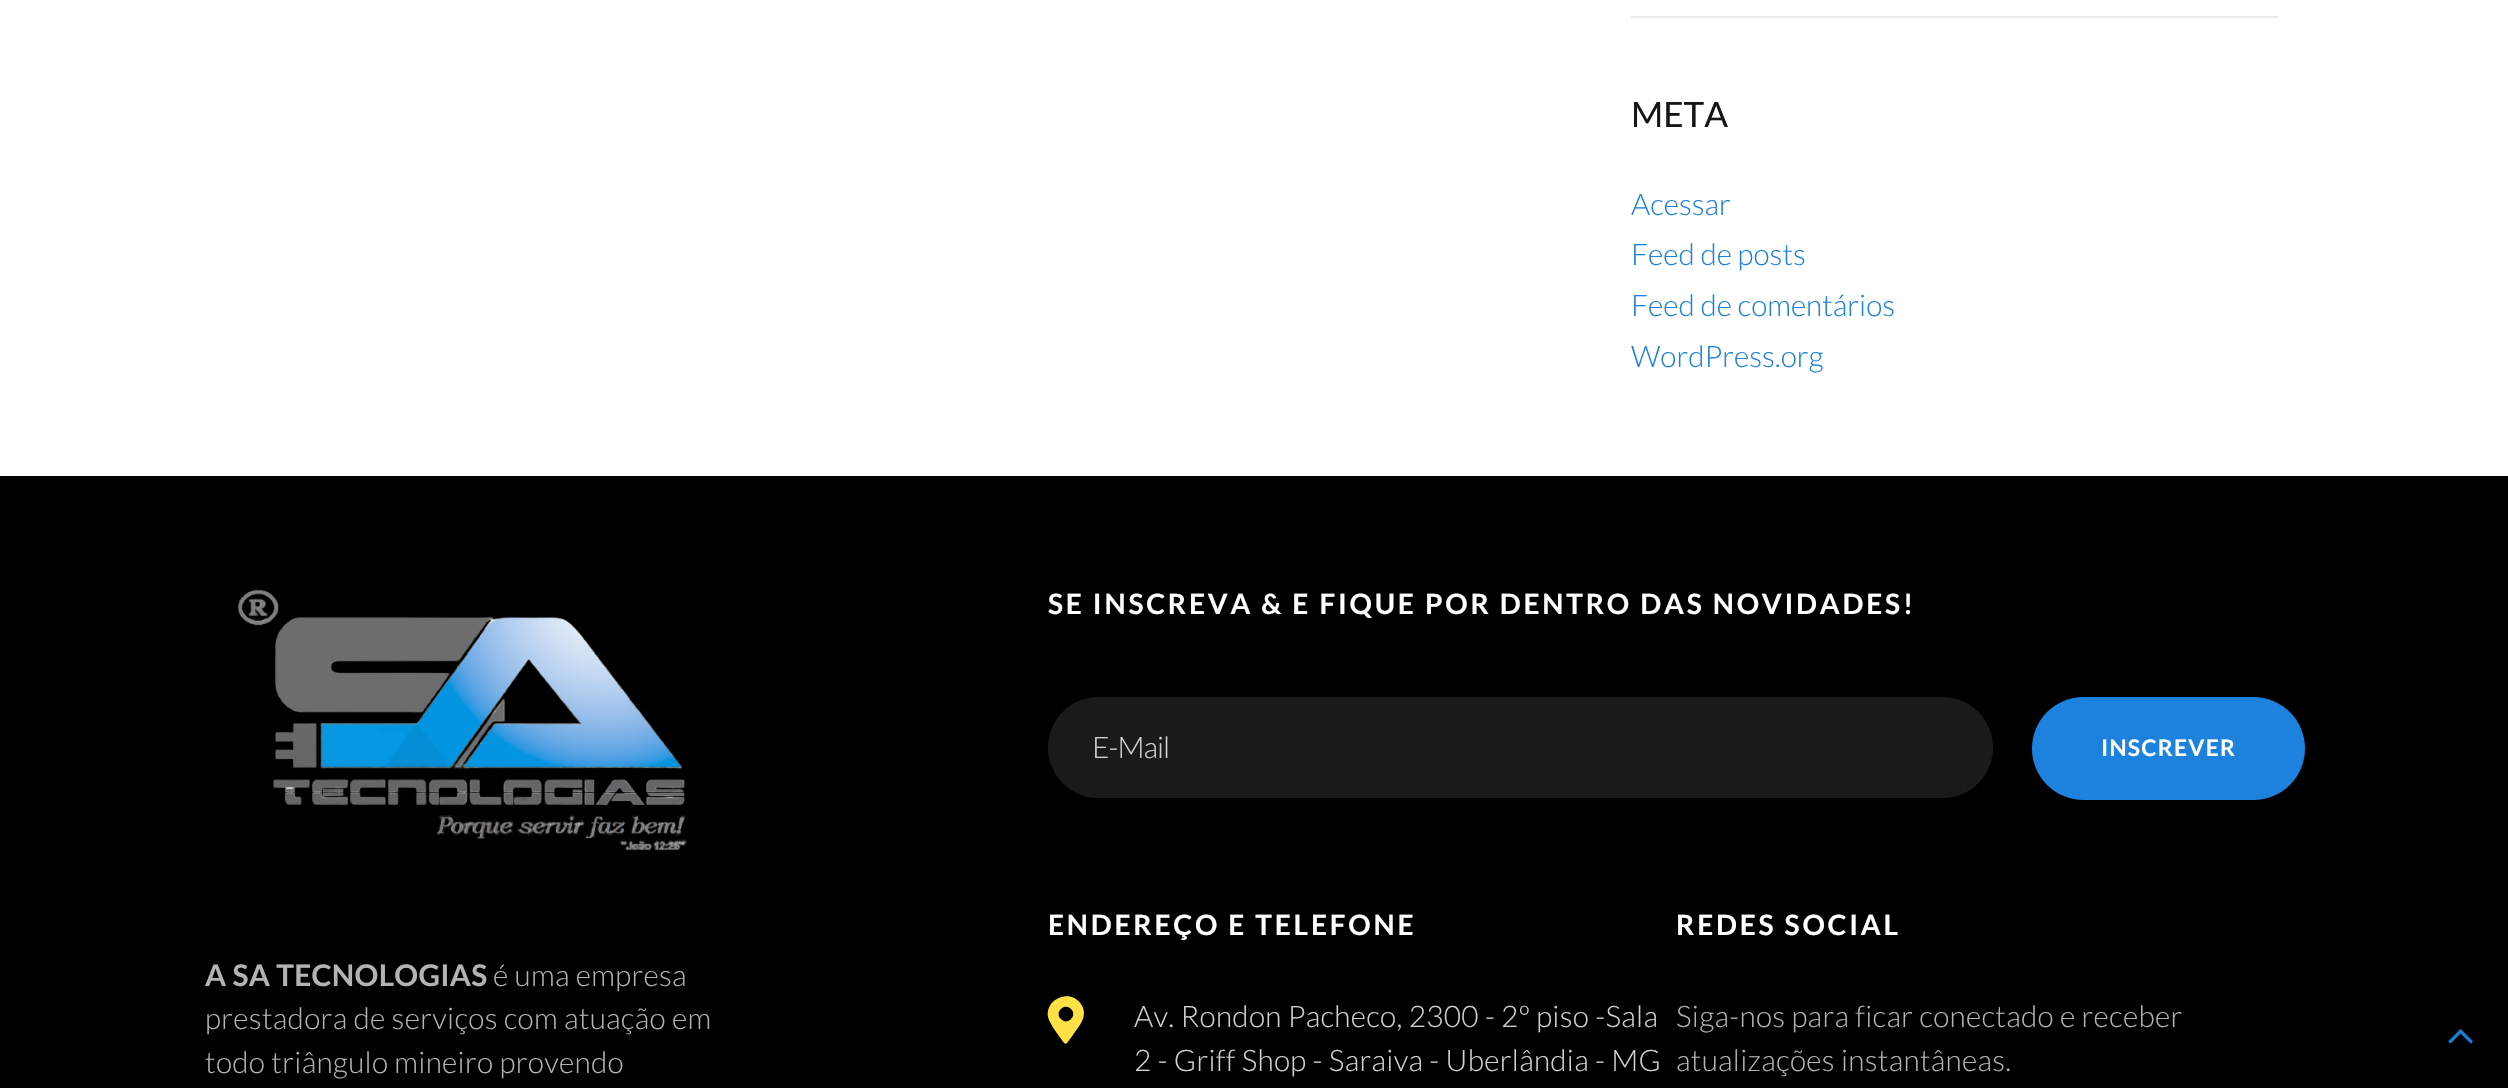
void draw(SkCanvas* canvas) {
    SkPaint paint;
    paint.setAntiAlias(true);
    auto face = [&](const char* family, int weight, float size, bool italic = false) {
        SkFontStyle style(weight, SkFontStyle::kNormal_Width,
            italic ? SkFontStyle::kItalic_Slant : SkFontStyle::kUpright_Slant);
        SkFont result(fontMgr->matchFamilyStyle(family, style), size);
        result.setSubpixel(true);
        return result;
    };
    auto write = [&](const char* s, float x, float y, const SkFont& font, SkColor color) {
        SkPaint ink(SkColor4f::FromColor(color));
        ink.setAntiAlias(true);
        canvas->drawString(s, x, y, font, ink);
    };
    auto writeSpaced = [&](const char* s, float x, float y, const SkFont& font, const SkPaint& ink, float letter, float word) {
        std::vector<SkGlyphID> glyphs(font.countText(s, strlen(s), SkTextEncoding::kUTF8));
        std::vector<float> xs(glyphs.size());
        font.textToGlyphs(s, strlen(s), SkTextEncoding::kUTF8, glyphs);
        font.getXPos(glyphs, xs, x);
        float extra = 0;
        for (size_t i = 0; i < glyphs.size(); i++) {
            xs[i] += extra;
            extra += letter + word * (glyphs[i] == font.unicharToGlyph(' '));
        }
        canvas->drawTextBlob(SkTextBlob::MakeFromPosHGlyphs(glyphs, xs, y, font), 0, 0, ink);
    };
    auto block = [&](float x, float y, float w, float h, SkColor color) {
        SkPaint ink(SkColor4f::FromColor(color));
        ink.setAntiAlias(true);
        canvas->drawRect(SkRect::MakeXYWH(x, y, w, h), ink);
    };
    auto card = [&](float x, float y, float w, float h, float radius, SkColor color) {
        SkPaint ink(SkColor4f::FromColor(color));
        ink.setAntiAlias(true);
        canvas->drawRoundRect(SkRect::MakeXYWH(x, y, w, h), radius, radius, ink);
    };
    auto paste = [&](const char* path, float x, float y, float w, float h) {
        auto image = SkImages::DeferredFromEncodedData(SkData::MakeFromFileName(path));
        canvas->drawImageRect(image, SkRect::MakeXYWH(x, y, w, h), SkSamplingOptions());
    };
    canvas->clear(SK_ColorWHITE);
    block(1631, 16, 648, 2, SkColorSetRGB(235, 236, 237));
    auto kFont1 = face("Lato", 400, 35);
    write("META", 1631, 127, kFont1, SkColorSetRGB(21, 21, 21));
    auto kFont2 = face("Lato", 300, 29.75f);
    write("Acessar", 1631, 215, kFont2, SkColorSetRGB(29, 129, 222));
    write("Feed de posts", 1631, 265, kFont2, SkColorSetRGB(29, 129, 222));
    write("Feed de comentários", 1631, 316, kFont2, SkColorSetRGB(29, 129, 222));
    write("WordPress.org", 1631, 367, kFont2, SkColorSetRGB(29, 129, 222));
    block(0, 476, 2508, 612, SK_ColorBLACK);
    paste("pic1.png", 237, 589, 450, 262);
    auto kFont3 = face("Lato", 700, 29.75f);
    paint.setColor(SkColorSetRGB(179, 179, 179));
    writeSpaced("A SA TECNOLOGIAS", 205, 986, kFont3, paint, 0.3f, 0);
    writeSpaced("é uma empresa", 493, 986, kFont2, paint, 0.3f, 0);
    writeSpaced("prestadora de serviços com atuação em", 205, 1029, kFont2, paint, 0.3f, 0);
    writeSpaced("todo triângulo mineiro provendo", 205, 1073, kFont2, paint, 0.3f, 0);
    auto kFont4 = face("Lato", 700, 28);
    paint.setColor(SK_ColorWHITE);
    writeSpaced("SE INSCREVA & E FIQUE POR DENTRO DAS NOVIDADES!", 1048, 614, kFont4, paint, 2.8f, 0);
    card(1048, 697, 945, 101, 50.5f, SkColorSetRGB(26, 26, 26));
    paint.setColor(SkColorSetRGB(209, 209, 209));
    writeSpaced("E-Mail", 1092, 758, kFont2, paint, -1, 0);
    card(2032, 697, 273, 103, 51.5f, SkColorSetRGB(29, 129, 222));
    auto kFont5 = face("Lato", 700, 22.75f);
    paint.setColor(SK_ColorWHITE);
    writeSpaced("INSCREVER", 2101, 756, kFont5, paint, 1.25f, 0);
    writeSpaced("ENDEREÇO E TELEFONE", 1048, 935, kFont4, paint, 2.8f, 0);
    paint.setColor(SkColorSetRGB(255, 225, 70));
    canvas->drawPath(SkPathBuilder().moveTo(1064, 1043).cubicTo(1060, 1037, 1050, 1025, 1048, 1017).cubicTo(1045, 999, 1070, 988, 1081, 1004).cubicTo(1089, 1016, 1079, 1026, 1073, 1035).lineTo(1067, 1043).cubicTo(1066, 1044, 1065, 1044, 1064, 1043).close().moveTo(1061, 1019).cubicTo(1067, 1026, 1078, 1016, 1071, 1009).cubicTo(1064, 1002, 1054, 1013, 1061, 1019).close().detach(), paint);
    paint.setColor(SkColorSetRGB(209, 209, 209));
    writeSpaced("Av. Rondon Pacheco, 2300 - 2º piso -Sala", 1134, 1027, kFont2, paint, 0.3f, 0);
    writeSpaced("2 - Griff Shop - Saraiva - Uberlândia - MG", 1134, 1071, kFont2, paint, 0.3f, 0);
    paint.setColor(SK_ColorWHITE);
    writeSpaced("REDES SOCIAL", 1676, 935, kFont4, paint, 2.8f, 0);
    paint.setColor(SkColorSetRGB(179, 179, 179));
    writeSpaced("Siga-nos para ficar conectado e receber", 1676, 1027, kFont2, paint, 0.3f, 0);
    writeSpaced("atualizações instantâneas.", 1676, 1071, kFont2, paint, 0.3f, 0);
    paste("pic2.png", 2448, 1029, 25, 15);
}
